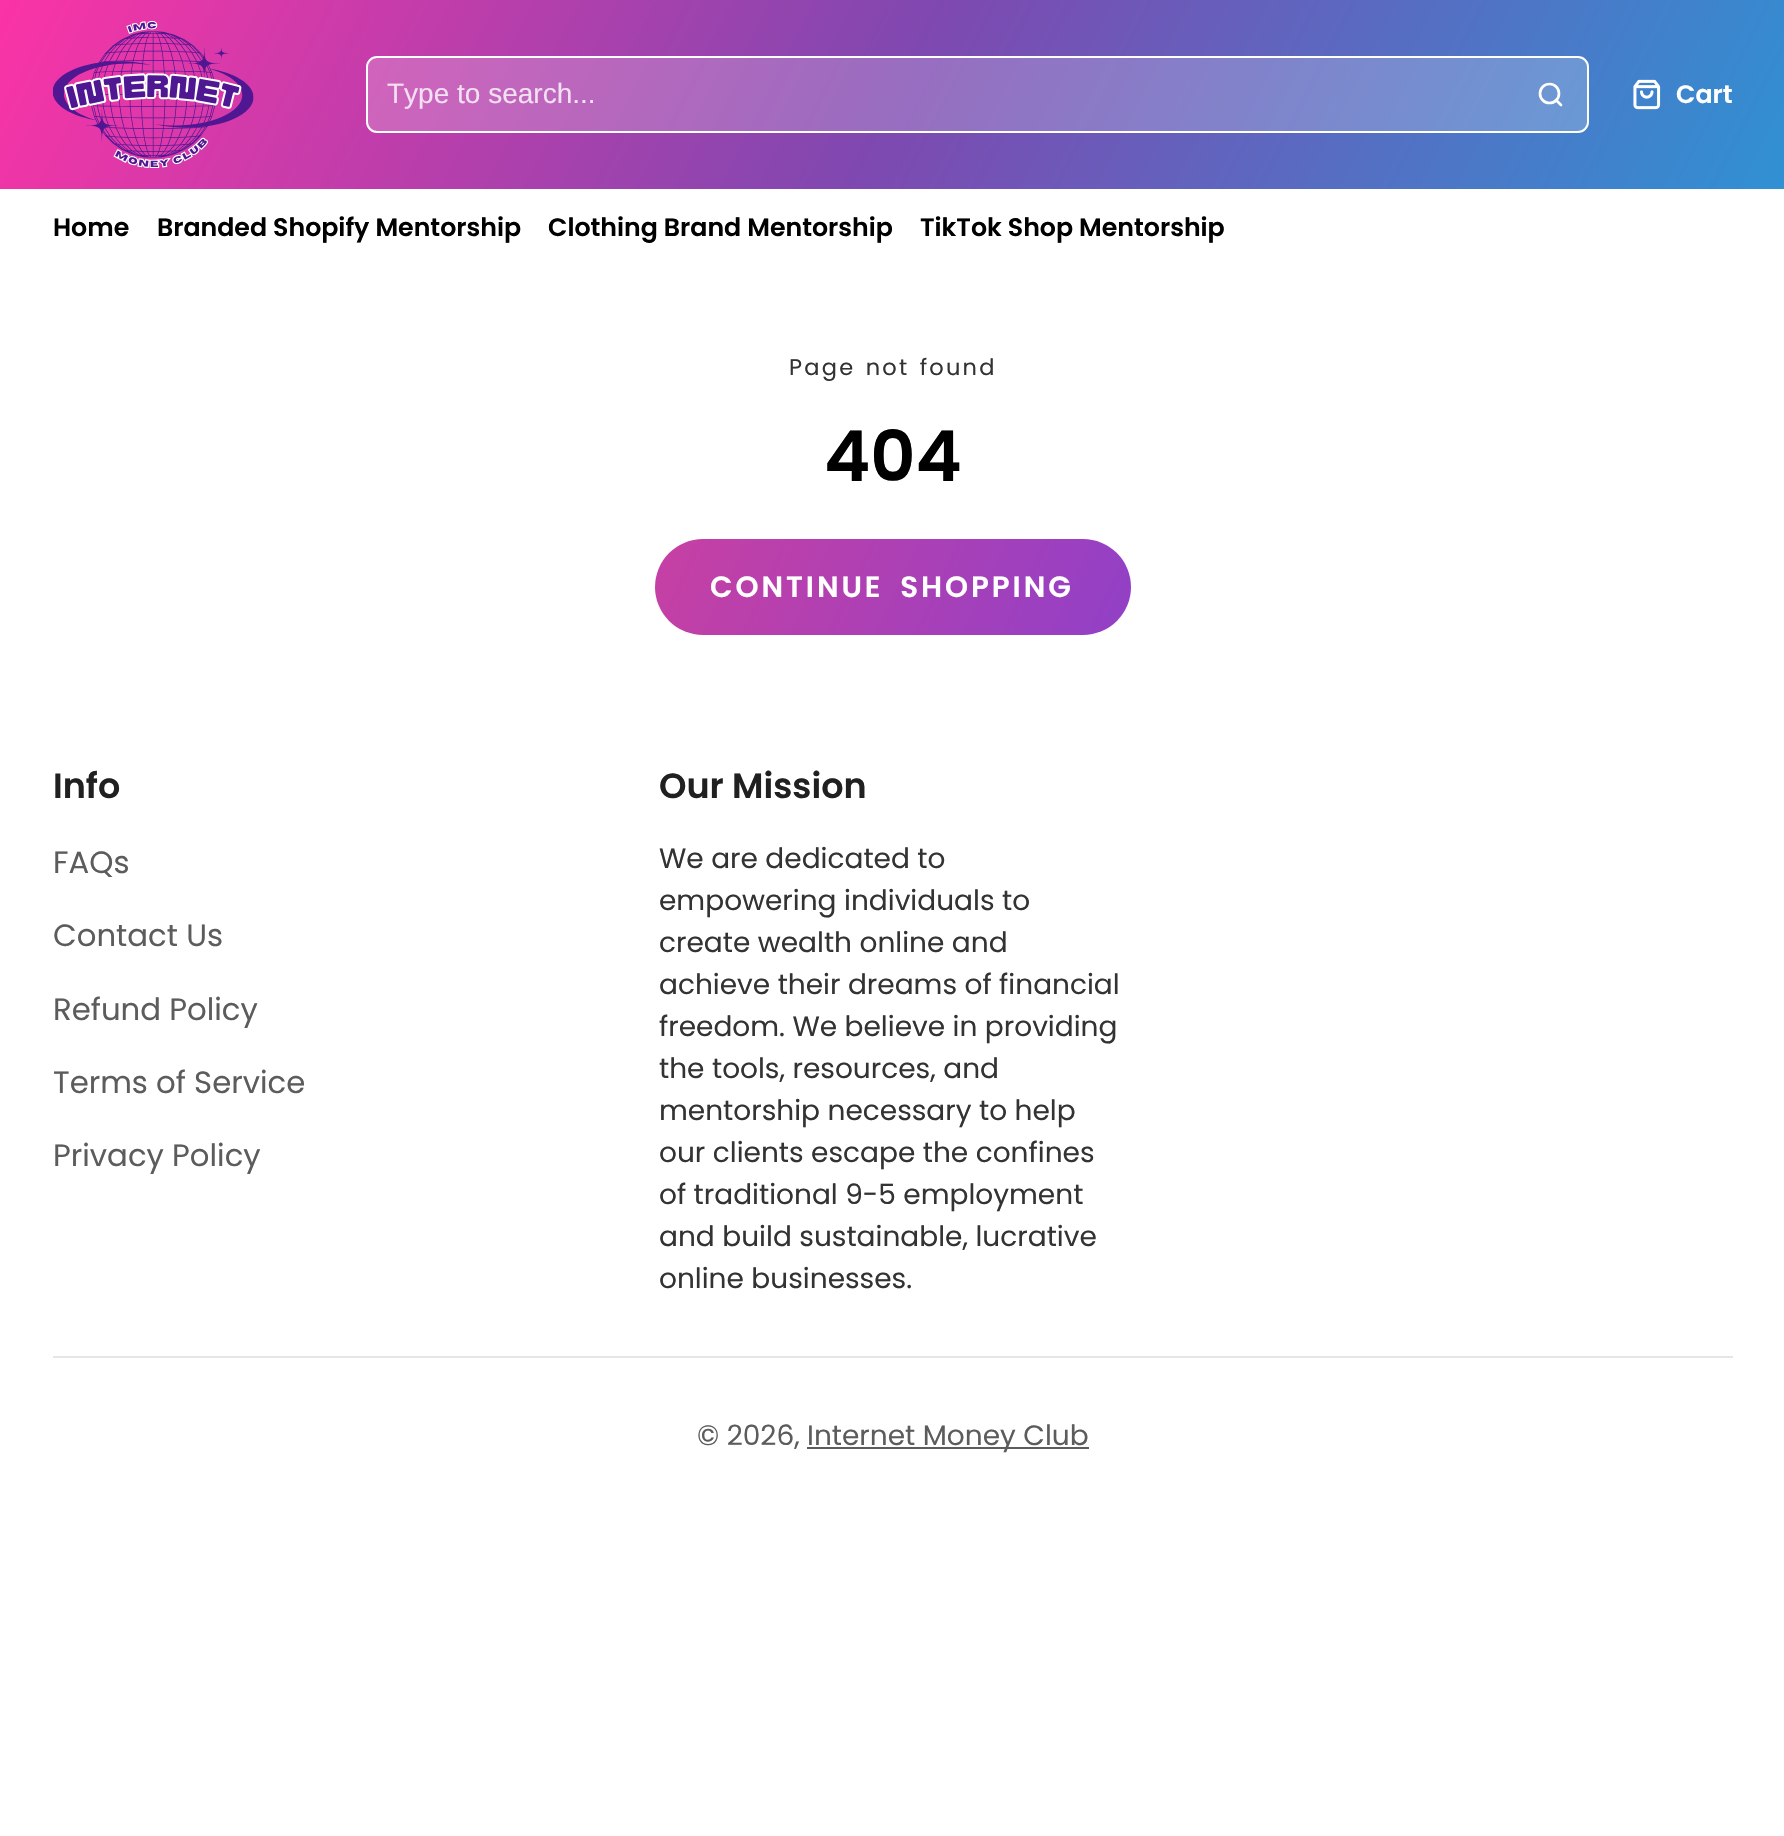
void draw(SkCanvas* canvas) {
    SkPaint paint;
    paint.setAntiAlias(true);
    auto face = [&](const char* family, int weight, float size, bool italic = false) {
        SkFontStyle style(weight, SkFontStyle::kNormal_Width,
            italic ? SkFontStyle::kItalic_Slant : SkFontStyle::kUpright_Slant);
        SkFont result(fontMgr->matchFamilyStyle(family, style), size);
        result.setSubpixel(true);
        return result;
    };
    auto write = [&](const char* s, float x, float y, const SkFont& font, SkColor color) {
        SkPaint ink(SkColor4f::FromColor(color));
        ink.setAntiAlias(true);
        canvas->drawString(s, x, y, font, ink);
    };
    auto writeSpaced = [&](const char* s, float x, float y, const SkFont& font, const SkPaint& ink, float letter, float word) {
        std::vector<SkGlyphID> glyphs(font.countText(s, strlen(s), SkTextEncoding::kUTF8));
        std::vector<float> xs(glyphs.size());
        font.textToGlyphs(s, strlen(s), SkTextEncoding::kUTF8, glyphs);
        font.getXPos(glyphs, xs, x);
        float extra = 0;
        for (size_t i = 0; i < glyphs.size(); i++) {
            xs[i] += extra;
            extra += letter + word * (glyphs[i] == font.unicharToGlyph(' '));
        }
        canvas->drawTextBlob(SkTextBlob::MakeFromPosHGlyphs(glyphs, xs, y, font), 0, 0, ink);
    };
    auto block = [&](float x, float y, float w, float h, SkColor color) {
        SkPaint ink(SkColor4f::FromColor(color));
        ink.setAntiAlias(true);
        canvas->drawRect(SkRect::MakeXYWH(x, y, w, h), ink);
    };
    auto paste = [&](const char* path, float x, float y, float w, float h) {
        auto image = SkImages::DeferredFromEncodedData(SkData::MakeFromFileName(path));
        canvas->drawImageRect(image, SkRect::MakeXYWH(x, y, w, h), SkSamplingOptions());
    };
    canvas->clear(SK_ColorWHITE);
    {
        const SkColor colors[] = {SkColorSetRGB(251, 51, 166), SkColorSetRGB(127, 72, 176), SkColorSetRGB(48, 145, 211)};
        const float stops[] = {0, 0.5f, 1};
        const SkPoint ends[] = {{146, -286}, {1639, 475}};
        paint.setShader(SkGradientShader::MakeLinear(ends, colors, stops, 3, SkTileMode::kClamp));
        paint.setAlpha(255);
    }
    canvas->drawRect(SkRect::MakeXYWH(0, 0, 1784, 189), paint);
    paste("pic1.png", 53, 21, 201, 147);
    paint.setShader(nullptr);
    paint.setColor(SkColorSetARGB(51, 255, 255, 255));
    canvas->drawRoundRect(SkRect::MakeXYWH(367, 57, 1221, 75), 10, 10, paint);
    paint.setStyle(SkPaint::kStroke_Style);
    paint.setStrokeWidth(2);
    paint.setColor(SK_ColorWHITE);
    canvas->drawRoundRect(SkRect::MakeXYWH(367, 57, 1221, 75), 10, 10, paint);
    auto kFont1 = face("Liberation Sans", 400, 28);
    write("Type to search...", 387, 103, kFont1, SkColorSetRGB(243, 224, 242));
    paint.setStrokeWidth(2.7f);
    canvas->drawCircle(1549.5f, 93.5f, 9.5f, paint);
    paint.setStrokeCap(SkPaint::kRound_Cap);
    paint.setStrokeJoin(SkPaint::kRound_Join);
    canvas->drawPath(SkPathBuilder().moveTo(1561, 105).lineTo(1556, 100).detach(), paint);
    paste("pic2.png", 1633, 79, 28, 31);
    auto kFont2 = face("Poppins", 600, 25.25f);
    write("Cart", 1676, 103, kFont2, SK_ColorWHITE);
    write("Home", 53, 236, kFont2, SK_ColorBLACK);
    write("Branded Shopify Mentorship", 157, 236, kFont2, SK_ColorBLACK);
    write("Clothing Brand Mentorship", 548, 236, kFont2, SK_ColorBLACK);
    write("TikTok Shop Mentorship", 920, 236, kFont2, SK_ColorBLACK);
    auto kFont3 = face("Poppins", 400, 22.5f);
    paint.setStyle(SkPaint::kFill_Style);
    paint.setColor(SkColorSetRGB(51, 51, 51));
    writeSpaced("Page not found", 789, 375, kFont3, paint, 2.25f, 2);
    auto kFont4 = face("Poppins", 600, 70);
    write("404", 824, 481, kFont4, SK_ColorBLACK);
    {
        const SkColor colors[] = {SkColorSetRGB(199, 64, 163), SkColorSetRGB(145, 64, 199)};
        const float stops[] = {0, 1};
        const SkPoint ends[] = {{679, 487}, {1106, 687}};
        paint.setShader(SkGradientShader::MakeLinear(ends, colors, stops, 2, SkTileMode::kClamp));
        paint.setAlpha(255);
    }
    canvas->drawRoundRect(SkRect::MakeXYWH(655, 539, 476, 96), 48, 48, paint);
    auto kFont5 = face("Poppins", 600, 29.4f);
    paint.setShader(nullptr);
    paint.setColor(SK_ColorWHITE);
    writeSpaced("CONTINUE SHOPPING", 710, 597, kFont5, paint, 2.9f, 7);
    auto kFont6 = face("Poppins", 600, 35);
    write("Info", 53, 798, kFont6, SkColorSetRGB(32, 32, 32));
    auto kFont7 = face("Poppins", 400, 30.75f);
    write("FAQs", 53, 873, kFont7, SkColorSetRGB(92, 92, 92));
    write("Contact Us", 53, 946, kFont7, SkColorSetRGB(92, 92, 92));
    write("Refund Policy", 53, 1020, kFont7, SkColorSetRGB(92, 92, 92));
    write("Terms of Service", 53, 1093, kFont7, SkColorSetRGB(92, 92, 92));
    write("Privacy Policy", 53, 1166, kFont7, SkColorSetRGB(92, 92, 92));
    write("Our Mission", 659, 798, kFont6, SkColorSetRGB(32, 32, 32));
    auto kFont8 = face("Poppins", 400, 28);
    write("We are dedicated to", 659, 868, kFont8, SkColorSetRGB(51, 51, 51));
    write("empowering individuals to", 659, 910, kFont8, SkColorSetRGB(51, 51, 51));
    write("create wealth online and", 659, 952, kFont8, SkColorSetRGB(51, 51, 51));
    write("achieve their dreams of financial", 659, 994, kFont8, SkColorSetRGB(51, 51, 51));
    write("freedom. We believe in providing", 659, 1036, kFont8, SkColorSetRGB(51, 51, 51));
    write("the tools, resources, and", 659, 1078, kFont8, SkColorSetRGB(51, 51, 51));
    write("mentorship necessary to help", 659, 1120, kFont8, SkColorSetRGB(51, 51, 51));
    write("our clients escape the confines", 659, 1162, kFont8, SkColorSetRGB(51, 51, 51));
    write("of traditional 9-5 employment", 659, 1204, kFont8, SkColorSetRGB(51, 51, 51));
    write("and build sustainable, lucrative", 659, 1246, kFont8, SkColorSetRGB(51, 51, 51));
    write("online businesses.", 659, 1288, kFont8, SkColorSetRGB(51, 51, 51));
    block(53, 1356, 1680, 2, SkColorSetRGB(230, 230, 230));
    write("© 2026,", 697, 1445, kFont8, SkColorSetRGB(92, 92, 92));
    block(807, 1447, 282, 2, SkColorSetRGB(92, 92, 92));
    write("Internet Money Club", 807, 1445, kFont8, SkColorSetRGB(92, 92, 92));
}
